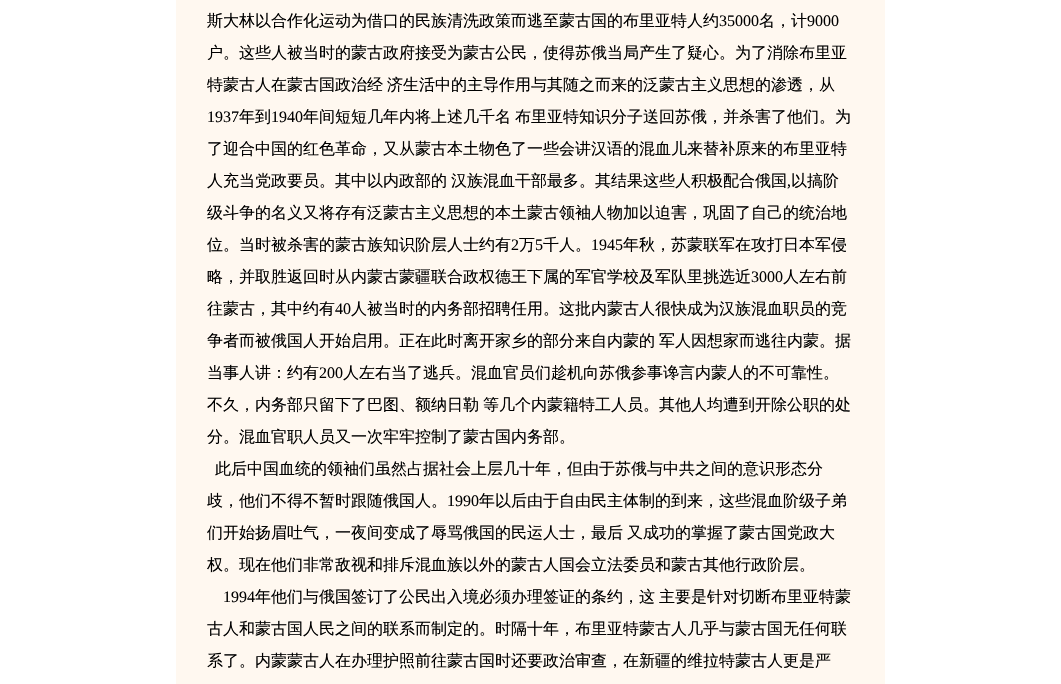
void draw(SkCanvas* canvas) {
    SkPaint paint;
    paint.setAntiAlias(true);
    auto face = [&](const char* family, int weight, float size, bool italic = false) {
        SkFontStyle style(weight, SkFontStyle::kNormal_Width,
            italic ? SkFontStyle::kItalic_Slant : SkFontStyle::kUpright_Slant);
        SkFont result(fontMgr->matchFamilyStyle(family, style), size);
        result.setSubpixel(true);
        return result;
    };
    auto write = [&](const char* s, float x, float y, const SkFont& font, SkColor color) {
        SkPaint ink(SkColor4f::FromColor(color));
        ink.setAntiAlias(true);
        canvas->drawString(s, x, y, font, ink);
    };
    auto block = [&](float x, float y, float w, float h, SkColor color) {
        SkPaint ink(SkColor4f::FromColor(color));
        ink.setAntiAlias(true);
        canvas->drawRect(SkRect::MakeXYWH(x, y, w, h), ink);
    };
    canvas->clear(SK_ColorWHITE);
    block(176, 0, 709, 684, SkColorSetRGB(255, 248, 240));
    auto kFont1 = face("WenQuanYi Zen Hei", 500, 16);
    write("斯大林以合作化运动为借口的民族清洗政策而逃至蒙古国的布里亚特人约", 207, 26, kFont1, SK_ColorBLACK);
    auto kFont2 = face("Liberation Serif", 400, 16);
    write("35000", 719, 26, kFont2, SK_ColorBLACK);
    write("名，计", 759, 26, kFont1, SK_ColorBLACK);
    write("9000", 807, 26, kFont2, SK_ColorBLACK);
    write("户。这些人被当时的蒙古政府接受为蒙古公民，使得苏俄当局产生了疑心。为了消除布里亚", 207, 58, kFont1, SK_ColorBLACK);
    write("特蒙古人在蒙古国政治经", 207, 90, kFont1, SK_ColorBLACK);
    write("济生活中的主导作用与其随之而来的泛蒙古主义思想的渗透，从", 387, 90, kFont1, SK_ColorBLACK);
    write("1937", 207, 122, kFont2, SK_ColorBLACK);
    write("年到", 239, 122, kFont1, SK_ColorBLACK);
    write("1940", 271, 122, kFont2, SK_ColorBLACK);
    write("年间短短几年内将上述几千名", 303, 122, kFont1, SK_ColorBLACK);
    write("布里亚特知识分子送回苏俄，并杀害了他们。为", 515, 122, kFont1, SK_ColorBLACK);
    write("了迎合中国的红色革命，又从蒙古本土物色了一些会讲汉语的混血儿来替补原来的布里亚特", 207, 154, kFont1, SK_ColorBLACK);
    write("人充当党政要员。其中以内政部的", 207, 186, kFont1, SK_ColorBLACK);
    write("汉族混血干部最多。其结果这些人积极配合俄国", 451, 186, kFont1, SK_ColorBLACK);
    write(",", 787, 186, kFont2, SK_ColorBLACK);
    write("以搞阶", 791, 186, kFont1, SK_ColorBLACK);
    write("级斗争的名义又将存有泛蒙古主义思想的本土蒙古领袖人物加以迫害，巩固了自己的统治地", 207, 218, kFont1, SK_ColorBLACK);
    write("位。当时被杀害的蒙古族知识阶层人士约有", 207, 250, kFont1, SK_ColorBLACK);
    write("2", 511, 250, kFont2, SK_ColorBLACK);
    write("万", 519, 250, kFont1, SK_ColorBLACK);
    write("5", 535, 250, kFont2, SK_ColorBLACK);
    write("千人。", 543, 250, kFont1, SK_ColorBLACK);
    write("1945", 591, 250, kFont2, SK_ColorBLACK);
    write("年秋，苏蒙联军在攻打日本军侵", 623, 250, kFont1, SK_ColorBLACK);
    write("略，并取胜返回时从内蒙古蒙疆联合政权德王下属的军官学校及军队里挑选近", 207, 282, kFont1, SK_ColorBLACK);
    write("3000", 751, 282, kFont2, SK_ColorBLACK);
    write("人左右前", 783, 282, kFont1, SK_ColorBLACK);
    write("往蒙古，其中约有", 207, 314, kFont1, SK_ColorBLACK);
    write("40", 335, 314, kFont2, SK_ColorBLACK);
    write("人被当时的内务部招聘任用。这批内蒙古人很快成为汉族混血职员的竞", 351, 314, kFont1, SK_ColorBLACK);
    write("争者而被俄国人开始启用。正在此时离开家乡的部分来自内蒙的", 207, 346, kFont1, SK_ColorBLACK);
    write("军人因想家而逃往内蒙。据", 659, 346, kFont1, SK_ColorBLACK);
    write("当事人讲：约有", 207, 378, kFont1, SK_ColorBLACK);
    write("200", 319, 378, kFont2, SK_ColorBLACK);
    write("人左右当了逃兵。混血官员们趁机向苏俄参事谗言内蒙人的不可靠性。", 343, 378, kFont1, SK_ColorBLACK);
    write("不久，内务部只留下了巴图、额纳日勒", 207, 410, kFont1, SK_ColorBLACK);
    write("等几个内蒙籍特工人员。其他人均遭到开除公职的处", 483, 410, kFont1, SK_ColorBLACK);
    write("分。混血官职人员又一次牢牢控制了蒙古国内务部。", 207, 442, kFont1, SK_ColorBLACK);
    write("此后中国血统的领袖们虽然占据社会上层几十年，但由于苏俄与中共之间的意识形态分", 215, 474, kFont1, SK_ColorBLACK);
    write("歧，他们不得不暂时跟随俄国人。", 207, 506, kFont1, SK_ColorBLACK);
    write("1990", 447, 506, kFont2, SK_ColorBLACK);
    write("年以后由于自由民主体制的到来，这些混血阶级子弟", 479, 506, kFont1, SK_ColorBLACK);
    write("们开始扬眉吐气，一夜间变成了辱骂俄国的民运人士，最后", 207, 538, kFont1, SK_ColorBLACK);
    write("又成功的掌握了蒙古国党政大", 627, 538, kFont1, SK_ColorBLACK);
    write("权。现在他们非常敌视和排斥混血族以外的蒙古人国会立法委员和蒙古其他行政阶层。", 207, 570, kFont1, SK_ColorBLACK);
    write("1994", 223, 602, kFont2, SK_ColorBLACK);
    write("年他们与俄国签订了公民出入境必须办理签证的条约，这", 255, 602, kFont1, SK_ColorBLACK);
    write("主要是针对切断布里亚特蒙", 659, 602, kFont1, SK_ColorBLACK);
    write("古人和蒙古国人民之间的联系而制定的。时隔十年，布里亚特蒙古人几乎与蒙古国无任何联", 207, 634, kFont1, SK_ColorBLACK);
    write("系了。内蒙蒙古人在办理护照前往蒙古国时还要政治审查，在新疆的维拉特蒙古人更是严", 207, 666, kFont1, SK_ColorBLACK);
}
